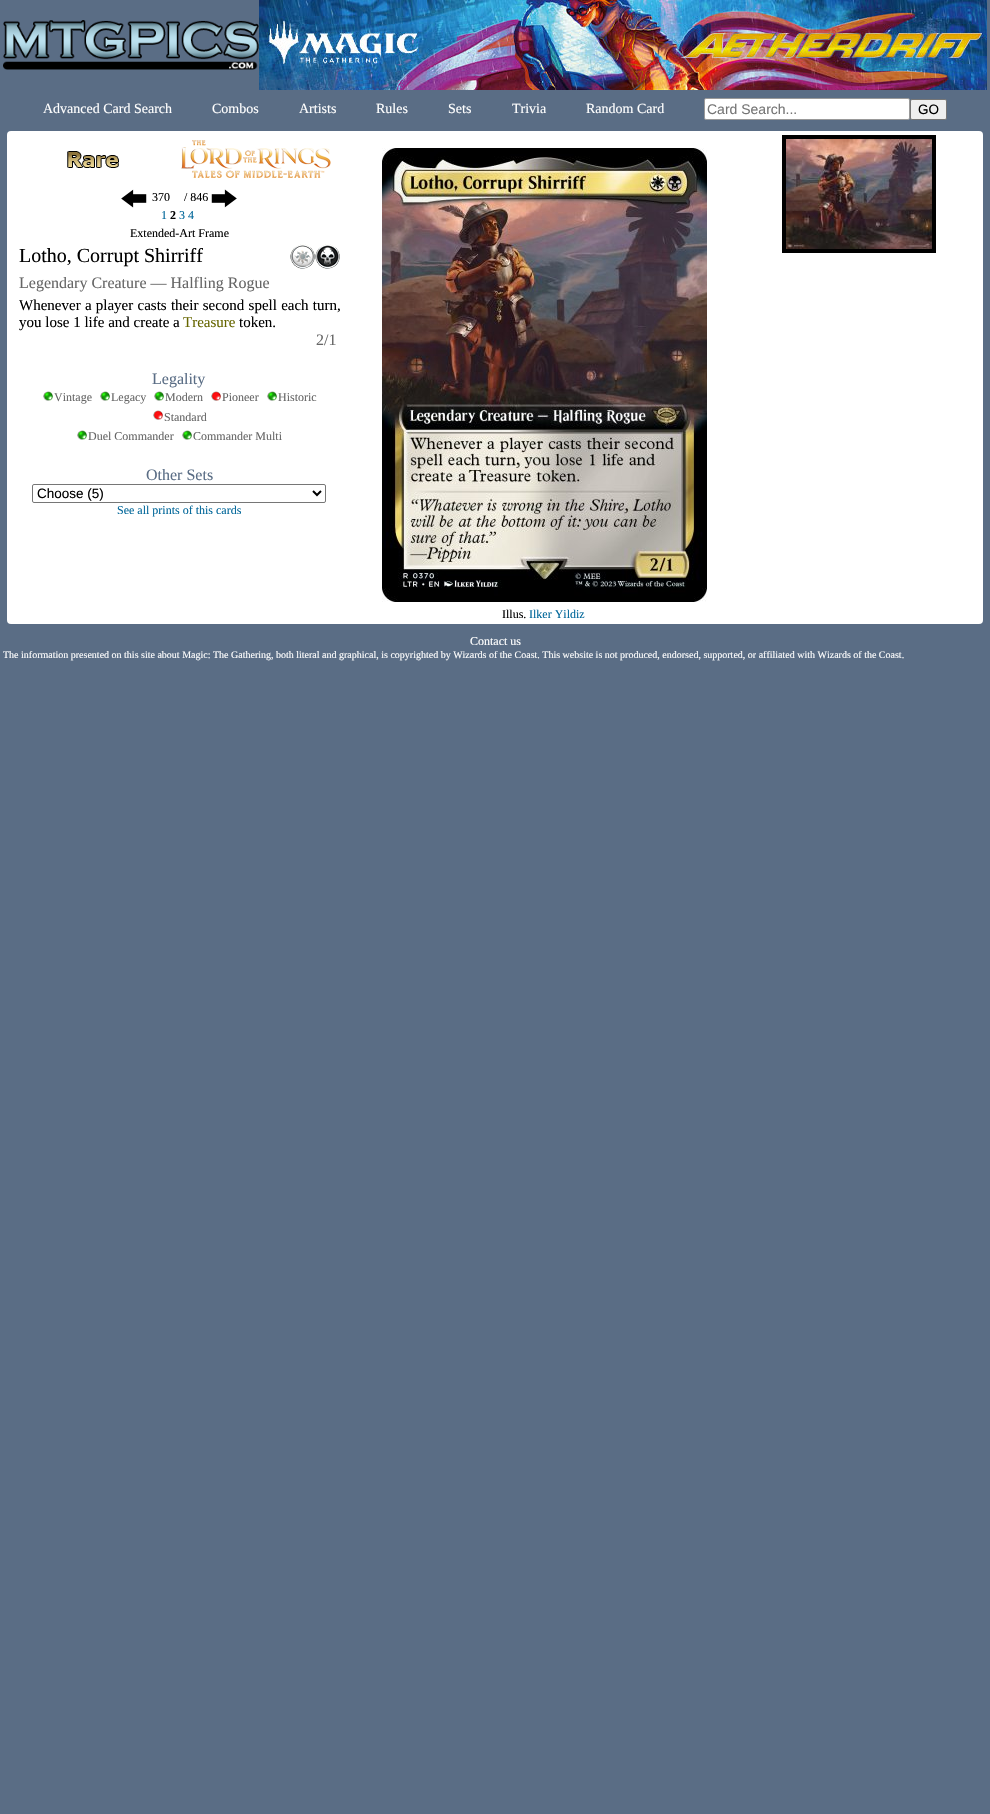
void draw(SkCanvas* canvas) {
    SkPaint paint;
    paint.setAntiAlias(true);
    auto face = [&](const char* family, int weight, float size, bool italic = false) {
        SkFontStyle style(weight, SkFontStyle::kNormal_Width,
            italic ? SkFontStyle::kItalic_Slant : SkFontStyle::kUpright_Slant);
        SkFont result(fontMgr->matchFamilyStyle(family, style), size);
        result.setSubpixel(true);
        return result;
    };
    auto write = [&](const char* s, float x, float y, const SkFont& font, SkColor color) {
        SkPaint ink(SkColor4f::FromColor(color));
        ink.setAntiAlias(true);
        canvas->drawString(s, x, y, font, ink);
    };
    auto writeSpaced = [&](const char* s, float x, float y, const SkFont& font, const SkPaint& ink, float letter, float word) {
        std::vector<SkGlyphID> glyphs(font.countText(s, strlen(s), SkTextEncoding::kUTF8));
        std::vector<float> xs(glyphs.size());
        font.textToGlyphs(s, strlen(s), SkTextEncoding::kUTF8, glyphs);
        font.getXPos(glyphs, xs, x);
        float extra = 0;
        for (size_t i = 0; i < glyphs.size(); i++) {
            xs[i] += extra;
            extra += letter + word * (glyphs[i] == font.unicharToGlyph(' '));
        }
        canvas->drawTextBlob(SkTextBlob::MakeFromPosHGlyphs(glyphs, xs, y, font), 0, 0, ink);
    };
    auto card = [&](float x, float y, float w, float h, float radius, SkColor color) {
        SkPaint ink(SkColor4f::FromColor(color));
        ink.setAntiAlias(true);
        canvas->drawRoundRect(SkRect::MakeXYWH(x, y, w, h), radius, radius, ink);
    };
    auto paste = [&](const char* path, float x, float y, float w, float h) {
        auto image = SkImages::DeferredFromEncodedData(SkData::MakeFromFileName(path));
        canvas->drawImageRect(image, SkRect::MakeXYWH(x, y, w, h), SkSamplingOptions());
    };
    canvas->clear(SkColorSetRGB(90, 109, 133));
    paste("pic1.png", 3, 20, 256, 50);
    paste("pic2.png", 259, 0, 728, 90);
    auto kFont1 = face("Liberation Serif", 400, 14);
    write("Advanced Card Search", 43, 113, kFont1, SK_ColorWHITE);
    write("Combos", 212, 113, kFont1, SK_ColorWHITE);
    write("Artists", 299, 113, kFont1, SK_ColorWHITE);
    write("Rules", 376, 113, kFont1, SK_ColorWHITE);
    write("Sets", 448, 113, kFont1, SK_ColorWHITE);
    write("Trivia", 512, 113, kFont1, SK_ColorWHITE);
    write("Random Card", 586, 113, kFont1, SK_ColorWHITE);
    paint.setColor(SK_ColorWHITE);
    canvas->drawRoundRect(SkRect::MakeXYWH(704.5f, 98.5f, 205, 21), 1.5f, 1.5f, paint);
    paint.setStyle(SkPaint::kStroke_Style);
    paint.setStrokeWidth(1);
    paint.setColor(SkColorSetRGB(153, 153, 153));
    canvas->drawRoundRect(SkRect::MakeXYWH(704.5f, 98.5f, 205, 21), 1.5f, 1.5f, paint);
    auto kFont2 = face("Liberation Sans", 400, 14);
    write("Card Search...", 707, 114, kFont2, SkColorSetRGB(117, 117, 117));
    paint.setStyle(SkPaint::kFill_Style);
    paint.setColor(SkColorSetRGB(239, 239, 239));
    canvas->drawRoundRect(SkRect::MakeXYWH(910.5f, 99.5f, 36, 20), 1.5f, 1.5f, paint);
    paint.setStyle(SkPaint::kStroke_Style);
    paint.setColor(SkColorSetRGB(118, 118, 118));
    canvas->drawRoundRect(SkRect::MakeXYWH(910.5f, 99.5f, 36, 20), 1.5f, 1.5f, paint);
    auto kFont3 = face("Liberation Sans", 400, 13.5f);
    write("GO", 918, 114, kFont3, SK_ColorBLACK);
    card(7, 131, 976, 493, 4, SK_ColorWHITE);
    paste("pic3.png", 67, 151, 52, 17);
    paste("pic4.png", 181, 140, 150, 38);
    paste("pic5.png", 121, 189, 26, 19);
    auto kFont4 = face("Liberation Serif", 400, 12);
    write("370", 152, 201, kFont4, SK_ColorBLACK);
    write("/ 846", 184, 201, kFont4, SK_ColorBLACK);
    paste("pic6.png", 211, 189, 26, 19);
    write("1", 161, 219, kFont4, SkColorSetRGB(0, 102, 153));
    auto kFont5 = face("Liberation Serif", 700, 12);
    write("2", 170, 219, kFont5, SK_ColorBLACK);
    write("3 4", 179, 219, kFont4, SkColorSetRGB(0, 102, 153));
    write("Extended-Art Frame", 130, 237, kFont4, SK_ColorBLACK);
    auto kFont6 = face("Liberation Serif", 400, 20);
    write("Lotho, Corrupt Shirriff", 19, 262, kFont6, SK_ColorBLACK);
    paste("pic7.png", 290, 244, 25, 25);
    paste("pic8.png", 315, 244, 25, 25);
    auto kFont7 = face("Liberation Serif", 400, 16);
    write("Legendary Creature — Halfling Rogue", 19, 288, kFont7, SkColorSetRGB(102, 102, 102));
    auto kFont8 = face("Liberation Serif", 400, 15);
    paint.setStyle(SkPaint::kFill_Style);
    paint.setColor(SK_ColorBLACK);
    writeSpaced("Whenever a player casts their second spell each turn,", 19, 310, kFont8, paint, 0, 0.5f);
    write("you lose 1 life and create a", 19, 327, kFont8, SK_ColorBLACK);
    write("Treasure", 183, 327, kFont8, SkColorSetRGB(102, 102, 0));
    write("token.", 239, 327, kFont8, SK_ColorBLACK);
    write("2/1", 316, 345, kFont7, SkColorSetRGB(102, 102, 102));
    write("Legality", 152, 384, kFont7, SkColorSetRGB(90, 109, 133));
    paste("pic9.png", 43, 391, 10, 10);
    write("Vintage", 54, 401, kFont4, SkColorSetRGB(102, 102, 102));
    paste("pic9.png", 100, 391, 10, 10);
    write("Legacy", 111, 401, kFont4, SkColorSetRGB(102, 102, 102));
    paste("pic9.png", 154, 391, 10, 10);
    write("Modern", 165, 401, kFont4, SkColorSetRGB(102, 102, 102));
    paste("pic10.png", 211, 391, 10, 10);
    write("Pioneer", 222, 401, kFont4, SkColorSetRGB(102, 102, 102));
    paste("pic9.png", 267, 391, 10, 10);
    write("Historic", 278, 401, kFont4, SkColorSetRGB(102, 102, 102));
    paste("pic10.png", 153, 410, 10, 10);
    write("Standard", 164, 421, kFont4, SkColorSetRGB(102, 102, 102));
    paste("pic9.png", 77, 430, 10, 10);
    write("Duel Commander", 88, 440, kFont4, SkColorSetRGB(102, 102, 102));
    paste("pic9.png", 182, 430, 10, 10);
    write("Commander Multi", 193, 440, kFont4, SkColorSetRGB(102, 102, 102));
    write("Other Sets", 146, 480, kFont7, SkColorSetRGB(90, 109, 133));
    paint.setStyle(SkPaint::kStroke_Style);
    paint.setColor(SkColorSetRGB(118, 118, 118));
    canvas->drawRoundRect(SkRect::MakeXYWH(32.5f, 484.5f, 293, 18), 1.5f, 1.5f, paint);
    paint.setStrokeWidth(2);
    paint.setColor(SK_ColorBLACK);
    canvas->drawPath(SkPathBuilder().moveTo(313, 491).lineTo(317, 495).lineTo(321, 491).detach(), paint);
    write("Choose (5)", 37, 498, kFont3, SK_ColorBLACK);
    write("See all prints of this cards", 117, 514, kFont4, SkColorSetRGB(0, 102, 153));
    paint.setStrokeWidth(4);
    canvas->drawRect(SkRect::MakeXYWH(784, 137, 150, 114), paint);
    paste("pic11.png", 786, 139, 146, 110);
    paste("pic12.png", 382, 148, 325, 454);
    write("Illus.", 502, 618, kFont4, SK_ColorBLACK);
    write("Ilker Yildiz", 529, 618, kFont4, SkColorSetRGB(0, 102, 153));
    write("Contact us", 470, 645, kFont4, SK_ColorWHITE);
    auto kFont9 = face("Liberation Serif", 400, 10);
    write("The information presented on this site about Magic: The Gathering, both literal and graphical, is copyrighted by Wizards of the Coast. This website is not produced, endorsed, supported, or affiliated with Wizards of the Coast.", 3, 658, kFont9, SK_ColorWHITE);
}
